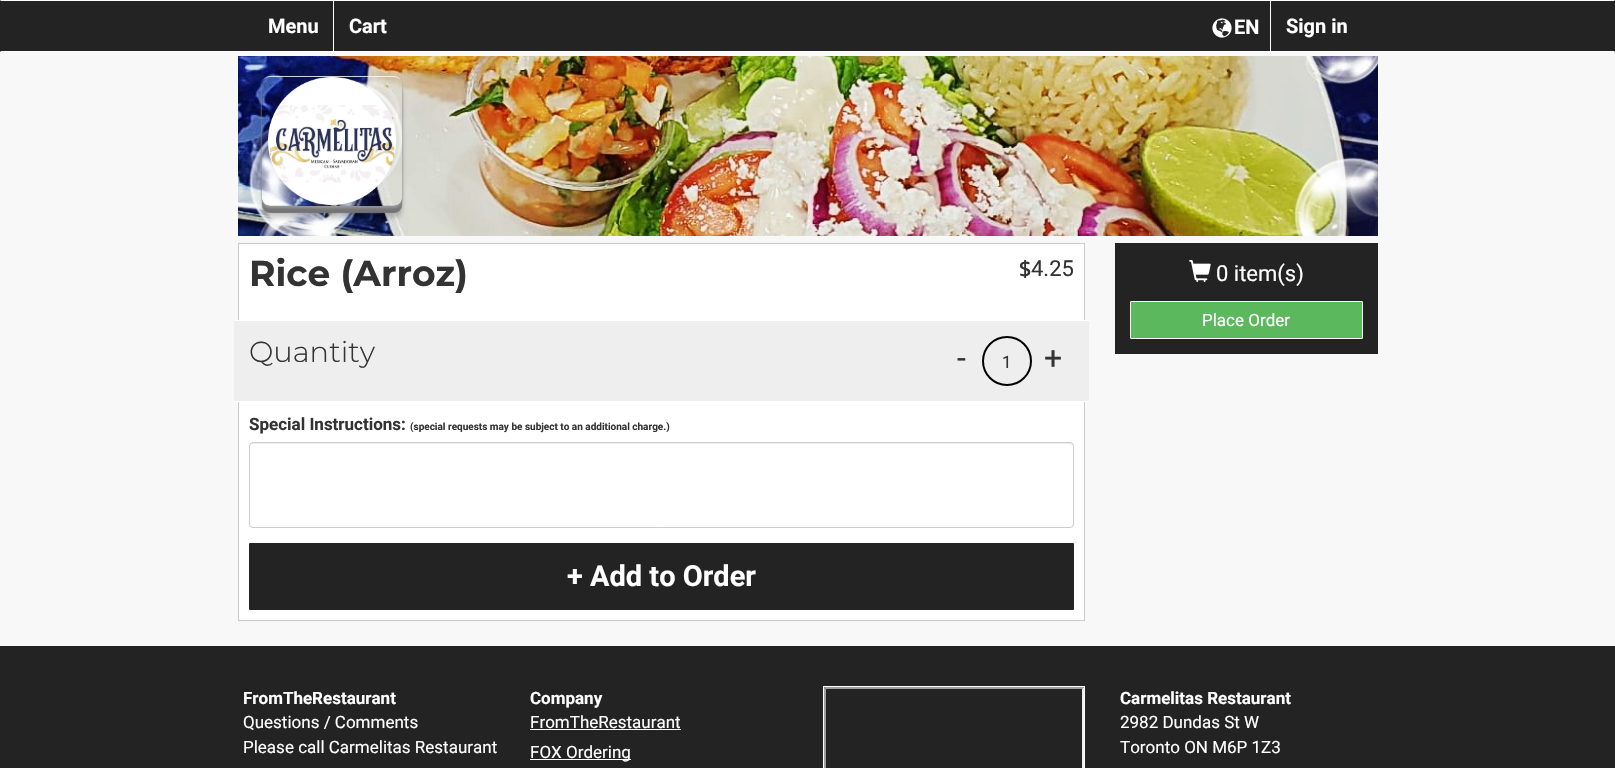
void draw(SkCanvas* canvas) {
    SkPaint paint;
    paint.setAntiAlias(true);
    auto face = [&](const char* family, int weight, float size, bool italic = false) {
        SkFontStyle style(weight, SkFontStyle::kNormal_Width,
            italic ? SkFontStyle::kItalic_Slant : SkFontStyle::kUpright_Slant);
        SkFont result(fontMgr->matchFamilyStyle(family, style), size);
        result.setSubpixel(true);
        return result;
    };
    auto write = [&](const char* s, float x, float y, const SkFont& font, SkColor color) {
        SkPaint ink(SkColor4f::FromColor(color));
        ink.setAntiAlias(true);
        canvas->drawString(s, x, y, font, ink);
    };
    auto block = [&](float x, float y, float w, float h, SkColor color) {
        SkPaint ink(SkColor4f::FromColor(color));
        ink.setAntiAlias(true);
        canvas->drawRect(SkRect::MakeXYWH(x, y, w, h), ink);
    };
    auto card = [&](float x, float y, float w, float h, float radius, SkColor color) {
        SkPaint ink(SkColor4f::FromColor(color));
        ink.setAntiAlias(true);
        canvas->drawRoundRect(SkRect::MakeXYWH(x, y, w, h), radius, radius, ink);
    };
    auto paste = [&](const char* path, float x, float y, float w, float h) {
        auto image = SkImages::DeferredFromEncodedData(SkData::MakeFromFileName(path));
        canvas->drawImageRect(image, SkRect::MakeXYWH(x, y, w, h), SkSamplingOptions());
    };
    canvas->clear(SkColorSetRGB(248, 248, 248));
    block(0, 0, 1615, 52, SkColorSetRGB(35, 35, 35));
    paint.setColor(SK_ColorWHITE);
    canvas->drawPath(SkPathBuilder().moveTo(0, 0).lineTo(1615, 0).lineTo(1614, 1).lineTo(1, 1).close().detach(), paint);
    canvas->drawPath(SkPathBuilder().moveTo(1615, 52).lineTo(0, 52).lineTo(1, 51).lineTo(1614, 51).close().detach(), paint);
    block(333, 1, 1, 50, SK_ColorWHITE);
    auto kFont1 = face("Roboto", 700, 20);
    write("Menu", 268, 33, kFont1, SK_ColorWHITE);
    write("Cart", 349, 33, kFont1, SK_ColorWHITE);
    paste("pic1.png", 1212, 18, 20, 20);
    write("EN", 1234, 34, kFont1, SK_ColorWHITE);
    block(1270, 1, 1, 50, SK_ColorWHITE);
    write("Sign in", 1286, 33, kFont1, SK_ColorWHITE);
    paste("pic2.png", 238, 56, 1140, 180);
    canvas->save();
    canvas->clipPath(SkPathBuilder(SkPathFillType::kEvenOdd).moveTo(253, 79).lineTo(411, 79).lineTo(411, 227).lineTo(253, 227).close().moveTo(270, 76).lineTo(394, 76).cubicTo(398.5f, 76, 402, 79.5f, 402, 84).lineTo(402, 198).cubicTo(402, 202.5f, 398.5f, 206, 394, 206).lineTo(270, 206).cubicTo(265.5f, 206, 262, 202.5f, 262, 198).lineTo(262, 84).cubicTo(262, 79.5f, 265.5f, 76, 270, 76).close().detach(), true);
    paint.setColor(SkColorSetARGB(51, 0, 0, 0));
    paint.setMaskFilter(SkMaskFilter::MakeBlur(kNormal_SkBlurStyle, 2.5f));
    canvas->drawRoundRect(SkRect::MakeXYWH(262, 88, 140, 130), 8, 8, paint);
    paint.setMaskFilter(nullptr);
    canvas->restore();
    canvas->save();
    canvas->clipPath(SkPathBuilder(SkPathFillType::kEvenOdd).moveTo(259, 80).lineTo(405, 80).lineTo(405, 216).lineTo(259, 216).close().moveTo(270, 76).lineTo(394, 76).cubicTo(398.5f, 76, 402, 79.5f, 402, 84).lineTo(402, 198).cubicTo(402, 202.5f, 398.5f, 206, 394, 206).lineTo(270, 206).cubicTo(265.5f, 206, 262, 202.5f, 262, 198).lineTo(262, 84).cubicTo(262, 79.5f, 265.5f, 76, 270, 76).close().detach(), true);
    paint.setColor(SkColorSetRGB(115, 115, 115));
    paint.setMaskFilter(SkMaskFilter::MakeBlur(kNormal_SkBlurStyle, 0.5f));
    canvas->drawRoundRect(SkRect::MakeXYWH(262, 83, 140, 130), 8, 8, paint);
    paint.setMaskFilter(nullptr);
    canvas->restore();
    canvas->save();
    canvas->clipPath(SkPathBuilder(SkPathFillType::kEvenOdd).moveTo(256, 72).lineTo(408, 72).lineTo(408, 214).lineTo(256, 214).close().moveTo(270, 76).lineTo(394, 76).cubicTo(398.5f, 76, 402, 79.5f, 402, 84).lineTo(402, 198).cubicTo(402, 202.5f, 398.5f, 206, 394, 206).lineTo(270, 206).cubicTo(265.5f, 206, 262, 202.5f, 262, 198).lineTo(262, 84).cubicTo(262, 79.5f, 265.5f, 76, 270, 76).close().detach(), true);
    paint.setColor(SkColorSetRGB(153, 153, 153));
    paint.setMaskFilter(SkMaskFilter::MakeBlur(kNormal_SkBlurStyle, 1.5f));
    canvas->drawRoundRect(SkRect::MakeXYWH(262, 78, 140, 130), 8, 8, paint);
    paint.setMaskFilter(nullptr);
    canvas->restore();
    paste("pic3.png", 268, 77, 128, 128);
    paint.setColor(SkColorSetARGB(204, 255, 255, 255));
    canvas->drawPath(SkPathBuilder().moveTo(270, 76).cubicTo(266, 76, 262, 80, 262, 84).cubicTo(262, 80, 266, 77, 270, 77).lineTo(394, 77).cubicTo(398, 77, 402, 80, 402, 84).cubicTo(402, 80, 398, 76, 394, 76).close().detach(), paint);
    paint.setColor(SkColorSetARGB(26, 0, 0, 0));
    canvas->drawPath(SkPathBuilder().moveTo(394, 206).cubicTo(398, 206, 402, 202, 402, 198).cubicTo(402, 202, 398, 205, 394, 205).lineTo(270, 205).cubicTo(266, 205, 262, 202, 262, 198).cubicTo(262, 202, 266, 206, 270, 206).close().detach(), paint);
    paint.setColor(SK_ColorWHITE);
    canvas->drawRect(SkRect::MakeXYWH(238.5f, 243.5f, 846, 377), paint);
    paint.setStyle(SkPaint::kStroke_Style);
    paint.setStrokeWidth(1);
    paint.setColor(SkColorSetRGB(204, 204, 204));
    canvas->drawRect(SkRect::MakeXYWH(238.5f, 243.5f, 846, 377), paint);
    auto kFont2 = face("Montserrat", 700, 36);
    write("Rice (Arroz)", 249, 286, kFont2, SkColorSetRGB(51, 51, 51));
    auto kFont3 = face("Kanit", 400, 22);
    write("$", 1019, 276, kFont3, SkColorSetRGB(51, 51, 51));
    auto kFont4 = face("Roboto", 400, 22);
    write("4.25", 1031, 276, kFont4, SkColorSetRGB(51, 51, 51));
    block(234, 321, 855, 80, SkColorSetRGB(238, 238, 238));
    block(234, 320, 855, 1, SK_ColorWHITE);
    block(234, 401, 855, 1, SK_ColorWHITE);
    auto kFont5 = face("Montserrat", 300, 29);
    write("Quantity", 249, 362, kFont5, SkColorSetRGB(51, 51, 51));
    auto kFont6 = face("Roboto", 400, 32);
    write("-", 957, 369, kFont6, SkColorSetRGB(51, 51, 51));
    paint.setStrokeWidth(2);
    paint.setColor(SK_ColorBLACK);
    canvas->drawCircle(1007, 361, 24, paint);
    auto kFont7 = face("Roboto", 400, 17);
    write("1", 1002, 368, kFont7, SkColorSetRGB(51, 51, 51));
    write("+", 1044, 369, kFont6, SkColorSetRGB(51, 51, 51));
    auto kFont8 = face("Roboto", 700, 17);
    write("Special Instructions:", 249, 430, kFont8, SkColorSetRGB(51, 51, 51));
    auto kFont9 = face("Roboto", 700, 10);
    write("(special requests may be subject to an additional charge.)", 410, 430, kFont9, SkColorSetRGB(51, 51, 51));
    paint.setStyle(SkPaint::kFill_Style);
    paint.setColor(SkColorSetRGB(236, 236, 236));
    canvas->drawPath(SkPathBuilder().moveTo(253, 444).lineTo(1070, 444).cubicTo(1072, 444, 1073, 445, 1073, 447).cubicTo(1073, 445, 1072, 443, 1070, 443).lineTo(253, 443).cubicTo(251, 443, 250, 445, 250, 447).cubicTo(250, 445, 251, 444, 253, 444).close().detach(), paint);
    paint.setStyle(SkPaint::kStroke_Style);
    paint.setStrokeWidth(1);
    paint.setColor(SkColorSetRGB(204, 204, 204));
    canvas->drawRoundRect(SkRect::MakeXYWH(249.5f, 442.5f, 824, 85), 3.5f, 3.5f, paint);
    card(249, 543, 825, 67, 1, SkColorSetRGB(35, 35, 35));
    auto kFont10 = face("Roboto", 700, 29);
    write("+ Add to Order", 567, 586, kFont10, SK_ColorWHITE);
    block(1115, 243, 263, 111, SkColorSetRGB(35, 35, 35));
    paste("pic4.png", 1189, 260, 22, 22);
    write("0 item(s)", 1216, 281, kFont4, SK_ColorWHITE);
    paint.setStyle(SkPaint::kFill_Style);
    paint.setColor(SkColorSetRGB(92, 184, 92));
    canvas->drawRoundRect(SkRect::MakeXYWH(1130.5f, 301.5f, 232, 37), 0.5f, 0.5f, paint);
    paint.setStyle(SkPaint::kStroke_Style);
    paint.setColor(SkColorSetRGB(248, 248, 248));
    canvas->drawRoundRect(SkRect::MakeXYWH(1130.5f, 301.5f, 232, 37), 0.5f, 0.5f, paint);
    write("Place Order", 1202, 326, kFont7, SK_ColorWHITE);
    block(0, 646, 1615, 122, SkColorSetRGB(35, 35, 35));
    write("FromTheRestaurant", 243, 704, kFont8, SK_ColorWHITE);
    write("Questions / Comments", 243, 728, kFont7, SK_ColorWHITE);
    write("Please call Carmelitas Restaurant", 243, 753, kFont7, SK_ColorWHITE);
    write("Company", 530, 704, kFont8, SK_ColorWHITE);
    write("FromTheRestaurant", 530, 728, kFont7, SK_ColorWHITE);
    block(530, 729, 151, 1, SK_ColorWHITE);
    block(530, 759, 101, 1, SK_ColorWHITE);
    write("FOX Ordering", 530, 758, kFont7, SK_ColorWHITE);
    paint.setColor(SK_ColorWHITE);
    canvas->drawRect(SkRect::MakeXYWH(823.5f, 686.5f, 261, 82), paint);
    paint.setStyle(SkPaint::kFill_Style);
    paint.setColor(SkColorSetRGB(159, 159, 159));
    canvas->drawPath(SkPathBuilder().moveTo(824, 687).lineTo(1084, 687).lineTo(1082, 689).lineTo(826, 689).close().detach(), paint);
    canvas->drawPath(SkPathBuilder().moveTo(824, 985).lineTo(824, 687).lineTo(826, 689).lineTo(826, 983).close().detach(), paint);
    paint.setColor(SkColorSetRGB(238, 238, 238));
    canvas->drawPath(SkPathBuilder().moveTo(1084, 687).lineTo(1084, 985).lineTo(1082, 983).lineTo(1082, 689).close().detach(), paint);
    write("Carmelitas Restaurant", 1120, 704, kFont8, SK_ColorWHITE);
    write("2982 Dundas St W", 1120, 728, kFont7, SK_ColorWHITE);
    write("Toronto ON M6P 1Z3", 1120, 753, kFont7, SK_ColorWHITE);
}
